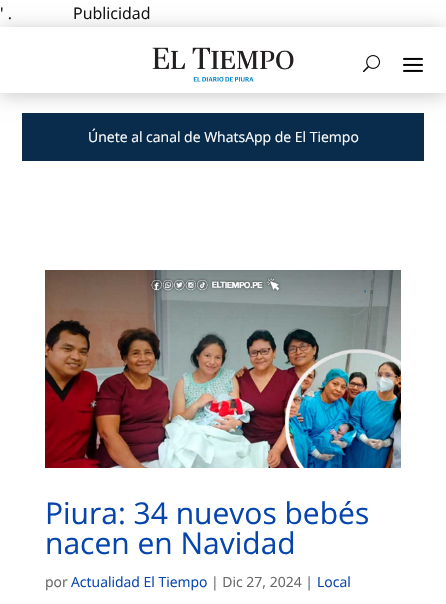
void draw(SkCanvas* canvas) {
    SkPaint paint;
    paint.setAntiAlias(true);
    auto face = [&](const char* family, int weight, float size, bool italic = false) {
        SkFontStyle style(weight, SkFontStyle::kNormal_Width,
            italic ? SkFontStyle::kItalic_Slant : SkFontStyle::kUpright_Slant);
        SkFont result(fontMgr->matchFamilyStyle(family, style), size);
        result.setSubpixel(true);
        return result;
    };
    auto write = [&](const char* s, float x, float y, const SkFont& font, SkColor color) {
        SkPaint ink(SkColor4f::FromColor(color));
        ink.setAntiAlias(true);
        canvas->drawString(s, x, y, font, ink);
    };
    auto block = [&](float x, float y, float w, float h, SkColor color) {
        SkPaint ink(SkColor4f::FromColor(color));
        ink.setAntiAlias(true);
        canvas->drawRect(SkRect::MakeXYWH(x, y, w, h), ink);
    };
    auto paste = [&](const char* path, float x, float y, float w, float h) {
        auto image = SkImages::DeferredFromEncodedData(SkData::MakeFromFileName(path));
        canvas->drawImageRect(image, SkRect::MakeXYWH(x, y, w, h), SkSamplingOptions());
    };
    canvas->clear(SK_ColorWHITE);
    auto kFont1 = face("Open Sans", 400, 16);
    write("' .", 0, 19, kFont1, SkColorSetRGB(17, 17, 17));
    block(22, 113, 402, 48, SkColorSetRGB(9, 44, 76));
    canvas->save();
    canvas->clipPath(SkPathBuilder(SkPathFillType::kEvenOdd).moveTo(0, 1).lineTo(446, 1).lineTo(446, 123).lineTo(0, 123).close().moveTo(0, 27).lineTo(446, 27).lineTo(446, 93).lineTo(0, 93).close().detach(), true);
    paint.setColor(SkColorSetARGB(56, 0, 0, 0));
    paint.setMaskFilter(SkMaskFilter::MakeBlur(kNormal_SkBlurStyle, 9));
    canvas->drawRect(SkRect::MakeXYWH(0, 29, 446, 66), paint);
    paint.setMaskFilter(nullptr);
    canvas->restore();
    write("Publicidad", 73, 19, kFont1, SkColorSetRGB(17, 17, 17));
    paste("pic1.png", 152, 47, 142, 35);
    paste("pic2.png", 363, 55, 17, 18);
    paste("pic3.png", 403, 57, 20, 15);
    auto kFont2 = face("Open Sans", 400, 14);
    write("Únete al canal de WhatsApp de El Tiempo", 88, 142, kFont2, SK_ColorWHITE);
    paste("pic4.png", 45, 270, 356, 198);
    auto kFont3 = face("Open Sans", 400, 30);
    write("Piura: 34 nuevos bebés", 45, 524, kFont3, SkColorSetRGB(6, 69, 173));
    write("nacen en Navidad", 45, 554, kFont3, SkColorSetRGB(6, 69, 173));
    write("por", 45, 587, kFont2, SkColorSetRGB(102, 102, 102));
    write("Actualidad El Tiempo", 71, 587, kFont2, SkColorSetRGB(6, 69, 173));
    write("| Dic 27, 2024 |", 211, 587, kFont2, SkColorSetRGB(102, 102, 102));
    write("Local", 317, 587, kFont2, SkColorSetRGB(6, 69, 173));
}
